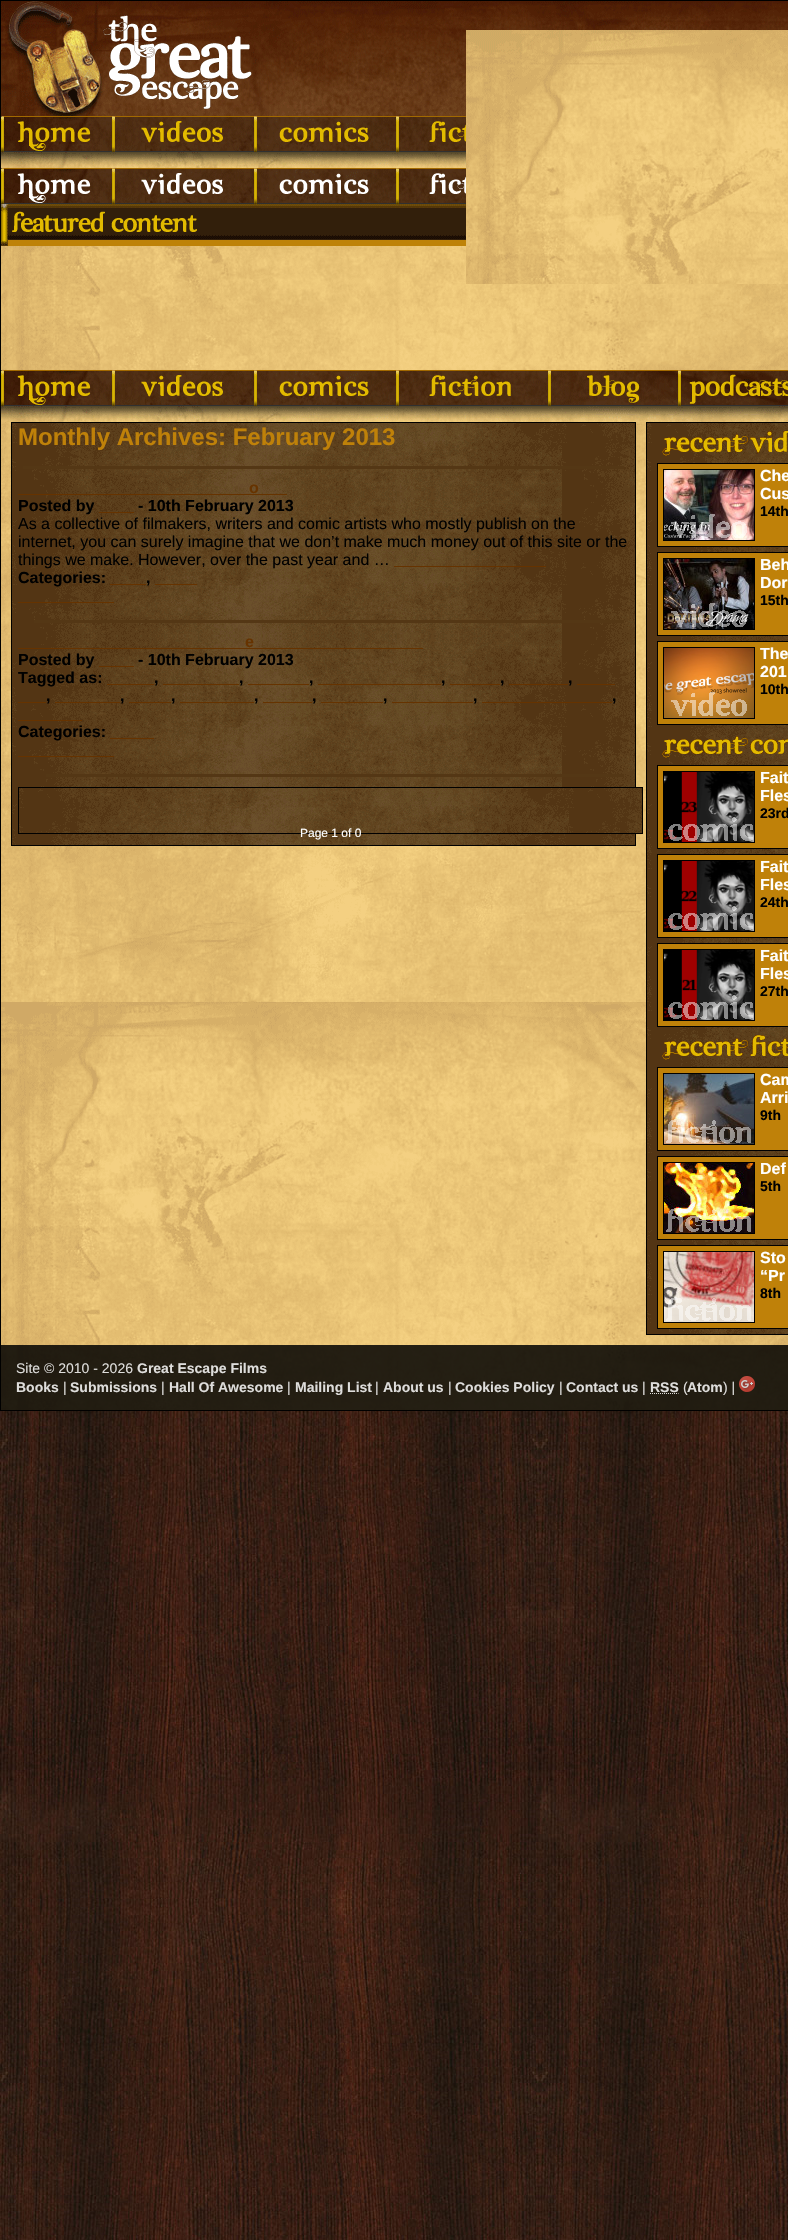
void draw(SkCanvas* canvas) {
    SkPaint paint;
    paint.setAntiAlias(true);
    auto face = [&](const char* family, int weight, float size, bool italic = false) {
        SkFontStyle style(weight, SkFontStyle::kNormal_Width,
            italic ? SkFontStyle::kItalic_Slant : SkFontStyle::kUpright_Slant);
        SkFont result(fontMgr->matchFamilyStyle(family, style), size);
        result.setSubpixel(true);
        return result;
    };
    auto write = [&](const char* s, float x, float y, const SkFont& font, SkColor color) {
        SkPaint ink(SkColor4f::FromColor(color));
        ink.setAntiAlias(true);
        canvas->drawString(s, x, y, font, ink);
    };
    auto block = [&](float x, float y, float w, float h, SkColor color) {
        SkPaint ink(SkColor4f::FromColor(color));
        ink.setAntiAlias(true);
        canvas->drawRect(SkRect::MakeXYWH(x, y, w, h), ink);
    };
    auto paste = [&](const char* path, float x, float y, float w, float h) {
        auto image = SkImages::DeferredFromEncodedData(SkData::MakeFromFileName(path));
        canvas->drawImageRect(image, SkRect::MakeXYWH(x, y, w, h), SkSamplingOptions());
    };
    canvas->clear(SK_ColorWHITE);
    paste("pic1.png", 0, 1411, 788, 829);
    paste("pic2.png", 1, 246, 787, 1164);
    paint.setStyle(SkPaint::kStroke_Style);
    paint.setStrokeWidth(1);
    paint.setColor(SK_ColorBLACK);
    canvas->drawRect(SkRect::MakeXYWH(0.5f, 0.5f, 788, 1410), paint);
    paste("pic3.png", 1, 1, 787, 245);
    paste("pic4.png", 466, 53, 322, 231);
    paste("pic5.png", 1, 370, 112, 36);
    paste("pic6.png", 113, 370, 142, 36);
    paste("pic7.png", 255, 370, 142, 36);
    paste("pic8.png", 397, 370, 152, 36);
    paste("pic9.png", 549, 370, 130, 36);
    paste("pic10.png", 679, 370, 109, 36);
    paste("pic11.png", 1, 406, 787, 16);
    paste("pic12.png", 12, 423, 623, 422);
    canvas->drawRect(SkRect::MakeXYWH(11.5f, 422.5f, 624, 423), paint);
    auto kFont1 = face("Liberation Sans", 700, 24);
    write("Monthly Archives: February 2013", 18, 445, kFont1, SkColorSetRGB(191, 129, 9));
    block(23, 466, 601, 3, SkColorSetRGB(84, 55, 21));
    auto kFont2 = face("Liberation Sans", 700, 16);
    write("o", 249, 493, kFont2, SkColorSetRGB(102, 51, 0));
    block(18, 494, 269, 1, SkColorSetRGB(102, 51, 0));
    write("Posted by", 18, 511, kFont2, SK_ColorBLACK);
    block(99, 512, 35, 1, SkColorSetRGB(102, 51, 0));
    write("- 10th February 2013", 138, 511, kFont2, SK_ColorBLACK);
    auto kFont3 = face("Liberation Sans", 400, 16);
    write("As a collective of filmakers, writers and comic artists who mostly publish on the", 18, 529, kFont3, SK_ColorBLACK);
    write("internet, you can surely imagine that we don’t make much money out of this site or the", 18, 547, kFont3, SK_ColorBLACK);
    write("things we make. However, over the past year and …", 18, 565, kFont3, SK_ColorBLACK);
    block(394, 566, 152, 1, SkColorSetRGB(102, 51, 0));
    write("Categories:", 18, 583, kFont2, SK_ColorBLACK);
    block(110, 584, 36, 1, SkColorSetRGB(102, 51, 0));
    write(",", 146, 583, kFont2, SK_ColorBLACK);
    block(155, 584, 42, 1, SkColorSetRGB(102, 51, 0));
    block(18, 602, 96, 1, SkColorSetRGB(102, 51, 0));
    block(34, 620, 590, 3, SkColorSetRGB(84, 55, 21));
    write("e", 245, 647, kFont2, SkColorSetRGB(102, 51, 0));
    block(18, 648, 405, 1, SkColorSetRGB(102, 51, 0));
    write("Posted by", 18, 665, kFont2, SK_ColorBLACK);
    block(99, 666, 35, 1, SkColorSetRGB(102, 51, 0));
    write("- 10th February 2013", 138, 665, kFont2, SK_ColorBLACK);
    write("Tagged as:", 18, 683, kFont2, SK_ColorBLACK);
    block(107, 684, 47, 1, SkColorSetRGB(102, 51, 0));
    write(",", 154, 683, kFont2, SK_ColorBLACK);
    block(163, 684, 76, 1, SkColorSetRGB(102, 51, 0));
    write(",", 239, 683, kFont2, SK_ColorBLACK);
    block(248, 684, 61, 1, SkColorSetRGB(102, 51, 0));
    write(",", 309, 683, kFont2, SK_ColorBLACK);
    block(318, 684, 123, 1, SkColorSetRGB(102, 51, 0));
    write(",", 441, 683, kFont2, SK_ColorBLACK);
    block(450, 684, 50, 1, SkColorSetRGB(102, 51, 0));
    write(",", 500, 683, kFont2, SK_ColorBLACK);
    block(509, 684, 59, 1, SkColorSetRGB(102, 51, 0));
    write(",", 568, 683, kFont2, SK_ColorBLACK);
    block(577, 684, 38, 1, SkColorSetRGB(102, 51, 0));
    block(18, 702, 28, 1, SkColorSetRGB(102, 51, 0));
    write(",", 46, 701, kFont2, SK_ColorBLACK);
    block(55, 702, 65, 1, SkColorSetRGB(102, 51, 0));
    write(",", 120, 701, kFont2, SK_ColorBLACK);
    block(129, 702, 42, 1, SkColorSetRGB(102, 51, 0));
    write(",", 171, 701, kFont2, SK_ColorBLACK);
    block(180, 702, 74, 1, SkColorSetRGB(102, 51, 0));
    write(",", 254, 701, kFont2, SK_ColorBLACK);
    block(263, 702, 49, 1, SkColorSetRGB(102, 51, 0));
    write(",", 312, 701, kFont2, SK_ColorBLACK);
    block(321, 702, 62, 1, SkColorSetRGB(102, 51, 0));
    write(",", 383, 701, kFont2, SK_ColorBLACK);
    block(392, 702, 81, 1, SkColorSetRGB(102, 51, 0));
    write(",", 473, 701, kFont2, SK_ColorBLACK);
    block(482, 702, 130, 1, SkColorSetRGB(102, 51, 0));
    write(",", 612, 701, kFont2, SK_ColorBLACK);
    block(18, 720, 64, 1, SkColorSetRGB(102, 51, 0));
    write("Categories:", 18, 737, kFont2, SK_ColorBLACK);
    block(110, 738, 44, 1, SkColorSetRGB(102, 51, 0));
    block(18, 756, 96, 1, SkColorSetRGB(102, 51, 0));
    block(46, 774, 578, 3, SkColorSetRGB(84, 55, 21));
    paste("pic13.png", 19, 788, 623, 45);
    canvas->drawRect(SkRect::MakeXYWH(18.5f, 787.5f, 624, 46), paint);
    auto kFont4 = face("Liberation Sans", 400, 12);
    write("Page 1 of 0", 300, 837, kFont4, SK_ColorWHITE);
    paste("pic14.png", 647, 423, 141, 911);
    canvas->drawRect(SkRect::MakeXYWH(646.5f, 422.5f, 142, 912), paint);
    paste("pic15.png", 662, 431, 126, 25);
    paint.setStyle(SkPaint::kFill_Style);
    paint.setColor(SkColorSetRGB(191, 129, 9));
    canvas->drawRect(SkRect::MakeXYWH(657.5f, 463.5f, 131, 83), paint);
    paint.setStyle(SkPaint::kStroke_Style);
    paint.setColor(SK_ColorBLACK);
    canvas->drawRect(SkRect::MakeXYWH(657.5f, 463.5f, 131, 83), paint);
    canvas->drawRect(SkRect::MakeXYWH(663.5f, 469.5f, 91, 71), paint);
    paste("pic16.png", 664, 470, 90, 70);
    paste("pic17.png", 671, 514, 76, 24);
    write("Che", 760, 481, kFont2, SK_ColorWHITE);
    write("Cus", 760, 499, kFont2, SK_ColorWHITE);
    auto kFont5 = face("Liberation Sans", 700, 14);
    write("14th", 760, 516, kFont5, SK_ColorBLACK);
    paint.setStyle(SkPaint::kFill_Style);
    paint.setColor(SkColorSetRGB(191, 129, 9));
    canvas->drawRect(SkRect::MakeXYWH(657.5f, 552.5f, 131, 83), paint);
    paint.setStyle(SkPaint::kStroke_Style);
    paint.setColor(SK_ColorBLACK);
    canvas->drawRect(SkRect::MakeXYWH(657.5f, 552.5f, 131, 83), paint);
    canvas->drawRect(SkRect::MakeXYWH(663.5f, 558.5f, 91, 71), paint);
    paste("pic18.png", 664, 559, 90, 70);
    paste("pic19.png", 671, 603, 76, 24);
    write("Beh", 760, 570, kFont2, SK_ColorWHITE);
    write("Dor", 760, 588, kFont2, SK_ColorWHITE);
    write("15th", 760, 605, kFont5, SK_ColorBLACK);
    paint.setStyle(SkPaint::kFill_Style);
    paint.setColor(SkColorSetRGB(191, 129, 9));
    canvas->drawRect(SkRect::MakeXYWH(657.5f, 641.5f, 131, 83), paint);
    paint.setStyle(SkPaint::kStroke_Style);
    paint.setColor(SK_ColorBLACK);
    canvas->drawRect(SkRect::MakeXYWH(657.5f, 641.5f, 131, 83), paint);
    canvas->drawRect(SkRect::MakeXYWH(663.5f, 647.5f, 91, 71), paint);
    paste("pic20.png", 664, 648, 90, 70);
    paste("pic21.png", 671, 692, 76, 24);
    write("The", 760, 659, kFont2, SK_ColorWHITE);
    write("201", 760, 677, kFont2, SK_ColorWHITE);
    write("10th", 760, 694, kFont5, SK_ColorBLACK);
    paste("pic22.png", 662, 736, 126, 22);
    paint.setStyle(SkPaint::kFill_Style);
    paint.setColor(SkColorSetRGB(191, 129, 9));
    canvas->drawRect(SkRect::MakeXYWH(657.5f, 765.5f, 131, 83), paint);
    paint.setStyle(SkPaint::kStroke_Style);
    paint.setColor(SK_ColorBLACK);
    canvas->drawRect(SkRect::MakeXYWH(657.5f, 765.5f, 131, 83), paint);
    canvas->drawRect(SkRect::MakeXYWH(663.5f, 771.5f, 91, 71), paint);
    paste("pic23.png", 664, 772, 90, 70);
    paste("pic24.png", 668, 817, 85, 24);
    write("Fait", 760, 783, kFont2, SK_ColorWHITE);
    write("Fles", 760, 801, kFont2, SK_ColorWHITE);
    write("23rd", 760, 818, kFont5, SK_ColorBLACK);
    paint.setStyle(SkPaint::kFill_Style);
    paint.setColor(SkColorSetRGB(191, 129, 9));
    canvas->drawRect(SkRect::MakeXYWH(657.5f, 854.5f, 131, 83), paint);
    paint.setStyle(SkPaint::kStroke_Style);
    paint.setColor(SK_ColorBLACK);
    canvas->drawRect(SkRect::MakeXYWH(657.5f, 854.5f, 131, 83), paint);
    canvas->drawRect(SkRect::MakeXYWH(663.5f, 860.5f, 91, 71), paint);
    paste("pic25.png", 664, 861, 90, 70);
    paste("pic24.png", 668, 906, 85, 24);
    write("Fait", 760, 872, kFont2, SK_ColorWHITE);
    write("Fles", 760, 890, kFont2, SK_ColorWHITE);
    write("24th", 760, 907, kFont5, SK_ColorBLACK);
    paint.setStyle(SkPaint::kFill_Style);
    paint.setColor(SkColorSetRGB(191, 129, 9));
    canvas->drawRect(SkRect::MakeXYWH(657.5f, 943.5f, 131, 83), paint);
    paint.setStyle(SkPaint::kStroke_Style);
    paint.setColor(SK_ColorBLACK);
    canvas->drawRect(SkRect::MakeXYWH(657.5f, 943.5f, 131, 83), paint);
    canvas->drawRect(SkRect::MakeXYWH(663.5f, 949.5f, 91, 71), paint);
    paste("pic26.png", 664, 950, 90, 70);
    paste("pic24.png", 668, 995, 85, 24);
    write("Fait", 760, 961, kFont2, SK_ColorWHITE);
    write("Fles", 760, 979, kFont2, SK_ColorWHITE);
    write("27th", 760, 996, kFont5, SK_ColorBLACK);
    paste("pic27.png", 662, 1035, 126, 25);
    paint.setStyle(SkPaint::kFill_Style);
    paint.setColor(SkColorSetRGB(191, 129, 9));
    canvas->drawRect(SkRect::MakeXYWH(657.5f, 1067.5f, 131, 83), paint);
    paint.setStyle(SkPaint::kStroke_Style);
    paint.setColor(SK_ColorBLACK);
    canvas->drawRect(SkRect::MakeXYWH(657.5f, 1067.5f, 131, 83), paint);
    canvas->drawRect(SkRect::MakeXYWH(663.5f, 1073.5f, 91, 71), paint);
    paste("pic28.png", 664, 1074, 90, 70);
    paste("pic29.png", 666, 1119, 85, 24);
    write("Cam", 760, 1085, kFont2, SK_ColorWHITE);
    write("Arri", 760, 1103, kFont2, SK_ColorWHITE);
    write("9th", 760, 1120, kFont5, SK_ColorBLACK);
    paint.setStyle(SkPaint::kFill_Style);
    paint.setColor(SkColorSetRGB(191, 129, 9));
    canvas->drawRect(SkRect::MakeXYWH(657.5f, 1156.5f, 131, 83), paint);
    paint.setStyle(SkPaint::kStroke_Style);
    paint.setColor(SK_ColorBLACK);
    canvas->drawRect(SkRect::MakeXYWH(657.5f, 1156.5f, 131, 83), paint);
    canvas->drawRect(SkRect::MakeXYWH(663.5f, 1162.5f, 91, 71), paint);
    paste("pic30.png", 664, 1163, 90, 70);
    paste("pic31.png", 666, 1208, 85, 24);
    write("Def", 760, 1174, kFont2, SK_ColorWHITE);
    write("5th", 760, 1191, kFont5, SK_ColorBLACK);
    paint.setStyle(SkPaint::kFill_Style);
    paint.setColor(SkColorSetRGB(191, 129, 9));
    canvas->drawRect(SkRect::MakeXYWH(657.5f, 1245.5f, 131, 83), paint);
    paint.setStyle(SkPaint::kStroke_Style);
    paint.setColor(SK_ColorBLACK);
    canvas->drawRect(SkRect::MakeXYWH(657.5f, 1245.5f, 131, 83), paint);
    canvas->drawRect(SkRect::MakeXYWH(663.5f, 1251.5f, 91, 71), paint);
    paste("pic32.png", 664, 1252, 90, 70);
    paste("pic33.png", 666, 1297, 85, 24);
    write("Sto", 760, 1263, kFont2, SK_ColorWHITE);
    write("“Pr", 760, 1281, kFont2, SK_ColorWHITE);
    write("8th", 760, 1298, kFont5, SK_ColorBLACK);
    block(1, 1345, 787, 65, SkColorSetARGB(217, 0, 0, 0));
    auto kFont6 = face("Liberation Sans", 400, 14);
    write("Site © 2010 - 2026", 16, 1373, kFont6, SkColorSetRGB(222, 221, 219));
    write("Great Escape Films", 137, 1373, kFont5, SkColorSetRGB(222, 221, 219));
    write("Books", 16, 1392, kFont5, SkColorSetRGB(222, 221, 219));
    write("|", 63, 1392, kFont6, SkColorSetRGB(222, 221, 219));
    write("Submissions", 70, 1392, kFont5, SkColorSetRGB(222, 221, 219));
    write("|", 161, 1392, kFont6, SkColorSetRGB(222, 221, 219));
    write("Hall Of Awesome", 169, 1392, kFont5, SkColorSetRGB(222, 221, 219));
    write("|", 287, 1392, kFont6, SkColorSetRGB(222, 221, 219));
    write("Mailing List", 295, 1392, kFont5, SkColorSetRGB(222, 221, 219));
    write("|", 375, 1392, kFont6, SkColorSetRGB(222, 221, 219));
    write("About us", 383, 1392, kFont5, SkColorSetRGB(222, 221, 219));
    write("|", 448, 1392, kFont6, SkColorSetRGB(222, 221, 219));
    write("Cookies Policy", 455, 1392, kFont5, SkColorSetRGB(222, 221, 219));
    write("|", 559, 1392, kFont6, SkColorSetRGB(222, 221, 219));
    write("Contact us", 566, 1392, kFont5, SkColorSetRGB(222, 221, 219));
    write("|", 642, 1392, kFont6, SkColorSetRGB(222, 221, 219));
    write("RSS", 650, 1392, kFont5, SkColorSetRGB(222, 221, 219));
    paint.setColor(SkColorSetRGB(222, 221, 219));
    paint.setPathEffect(SkDashPathEffect::Make({{1, 1}}, 0));
    canvas->drawPath(SkPathBuilder().moveTo(650, 1393.5f).lineTo(678.5f, 1393.5f).detach(), paint);
    paint.setPathEffect(nullptr);
    write("(", 683, 1392, kFont6, SkColorSetRGB(222, 221, 219));
    write("Atom", 687, 1392, kFont5, SkColorSetRGB(222, 221, 219));
    write(") |", 723, 1392, kFont6, SkColorSetRGB(222, 221, 219));
    paste("pic34.png", 739, 1376, 16, 16);
}
